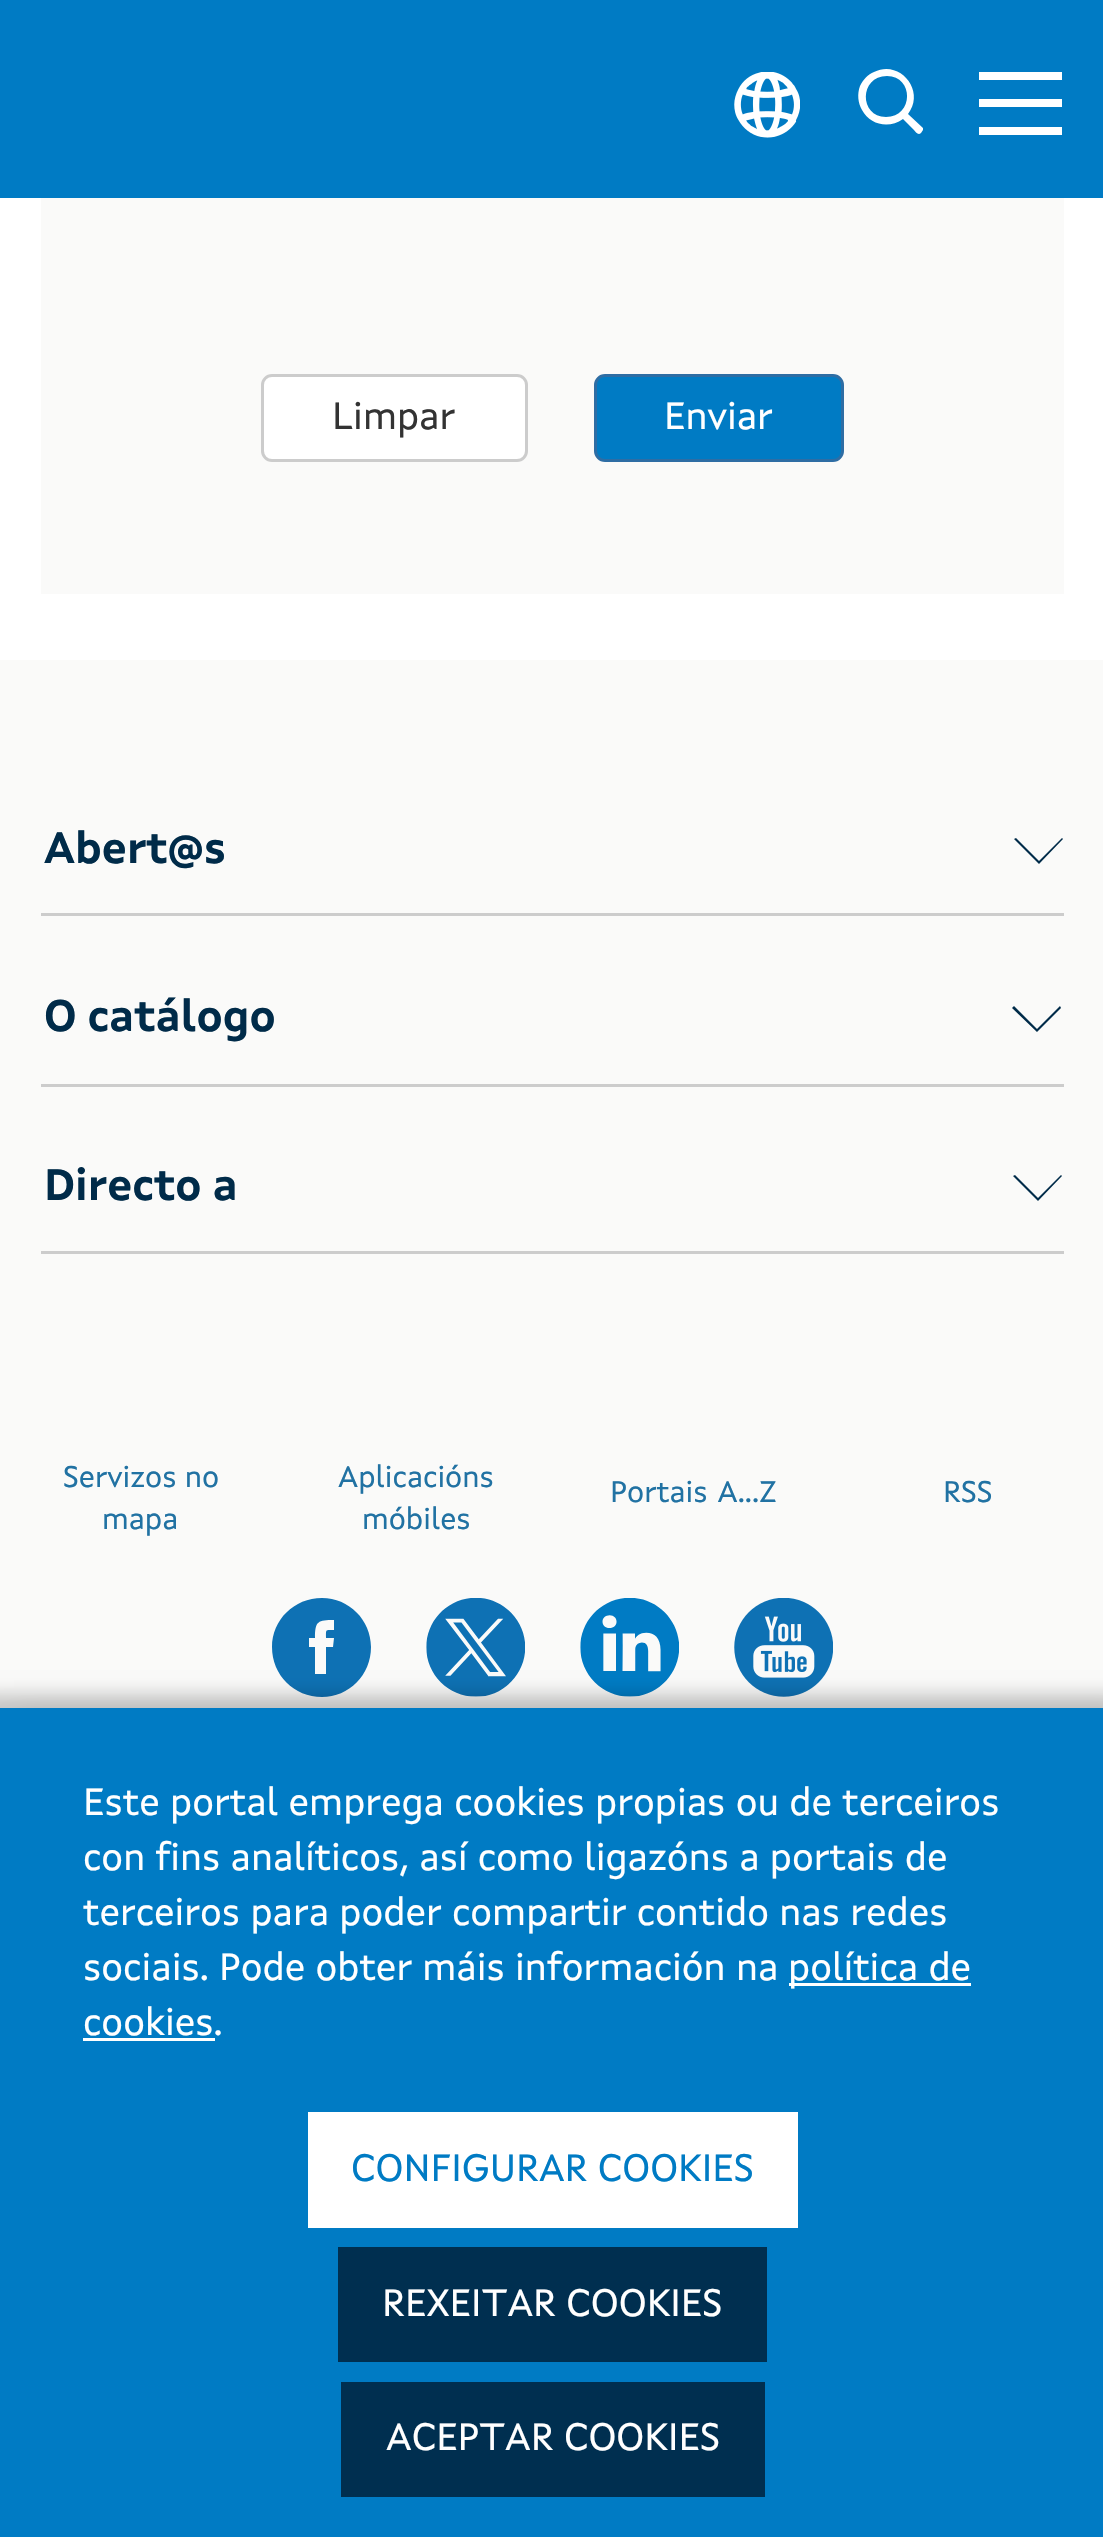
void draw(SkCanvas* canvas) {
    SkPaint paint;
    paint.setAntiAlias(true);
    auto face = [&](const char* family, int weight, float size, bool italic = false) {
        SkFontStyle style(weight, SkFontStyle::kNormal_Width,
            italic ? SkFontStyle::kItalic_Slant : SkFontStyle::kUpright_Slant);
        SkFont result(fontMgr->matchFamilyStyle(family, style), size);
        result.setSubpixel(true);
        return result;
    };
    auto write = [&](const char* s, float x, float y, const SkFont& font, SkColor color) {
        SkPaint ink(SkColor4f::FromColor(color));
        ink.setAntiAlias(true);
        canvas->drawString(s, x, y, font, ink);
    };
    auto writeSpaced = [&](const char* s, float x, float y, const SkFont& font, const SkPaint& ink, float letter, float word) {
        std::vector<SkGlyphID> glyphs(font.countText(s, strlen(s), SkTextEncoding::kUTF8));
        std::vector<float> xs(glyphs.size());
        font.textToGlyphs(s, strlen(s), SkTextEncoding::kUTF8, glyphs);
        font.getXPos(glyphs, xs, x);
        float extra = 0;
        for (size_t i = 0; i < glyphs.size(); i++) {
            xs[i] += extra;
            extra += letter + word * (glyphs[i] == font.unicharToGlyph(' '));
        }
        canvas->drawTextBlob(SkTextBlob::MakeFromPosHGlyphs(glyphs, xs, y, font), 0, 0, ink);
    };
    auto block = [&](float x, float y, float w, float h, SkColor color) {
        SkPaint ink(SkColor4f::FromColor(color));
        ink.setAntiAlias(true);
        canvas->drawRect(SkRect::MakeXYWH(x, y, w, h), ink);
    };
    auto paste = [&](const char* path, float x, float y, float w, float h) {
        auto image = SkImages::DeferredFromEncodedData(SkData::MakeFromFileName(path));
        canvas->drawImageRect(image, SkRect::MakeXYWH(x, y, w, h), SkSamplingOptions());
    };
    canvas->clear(SK_ColorWHITE);
    block(0, 0, 1103, 198, SkColorSetRGB(0, 123, 196));
    paste("pic1.png", 734, 72, 66, 66);
    paint.setColor(SK_ColorWHITE);
    canvas->drawPath(SkPathBuilder().moveTo(923, 128).lineTo(908, 114).cubicTo(926, 91, 900, 59, 874, 72).cubicTo(868, 74, 863, 80, 860, 86).cubicTo(857, 94, 858, 103, 862, 110).cubicTo(870, 125, 889, 129, 903, 119).lineTo(913, 129).cubicTo(916, 132, 918, 136, 921, 133).lineTo(923, 130).close().moveTo(886, 117).cubicTo(859, 117, 859, 76, 887, 76).cubicTo(914, 76, 914, 117, 886, 117).close().detach(), paint);
    block(979, 72, 83, 8, SK_ColorWHITE);
    block(979, 99, 83, 8, SK_ColorWHITE);
    block(979, 127, 83, 8, SK_ColorWHITE);
    block(41, 198, 1023, 396, SkColorSetRGB(250, 250, 249));
    canvas->drawRoundRect(SkRect::MakeXYWH(262.5f, 375.5f, 264, 85), 9.5f, 9.5f, paint);
    paint.setStyle(SkPaint::kStroke_Style);
    paint.setStrokeWidth(3);
    paint.setColor(SkColorSetRGB(204, 204, 204));
    canvas->drawRoundRect(SkRect::MakeXYWH(262.5f, 375.5f, 264, 85), 9.5f, 9.5f, paint);
    auto kFont1 = face("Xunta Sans", 400, 38.5f);
    write("Limpar", 332, 429, kFont1, SkColorSetRGB(51, 51, 51));
    paint.setStyle(SkPaint::kFill_Style);
    paint.setColor(SkColorSetRGB(0, 123, 196));
    canvas->drawRoundRect(SkRect::MakeXYWH(595.5f, 375.5f, 247, 85), 9.5f, 9.5f, paint);
    paint.setStyle(SkPaint::kStroke_Style);
    paint.setColor(SkColorSetRGB(46, 109, 164));
    canvas->drawRoundRect(SkRect::MakeXYWH(595.5f, 375.5f, 247, 85), 9.5f, 9.5f, paint);
    write("Enviar", 664, 429, kFont1, SK_ColorWHITE);
    block(0, 660, 1103, 1048, SkColorSetRGB(250, 250, 249));
    block(41, 913, 1023, 3, SkColorSetRGB(204, 204, 204));
    auto kFont2 = face("Xunta Sans", 700, 44);
    write("Abert@s", 44, 863, kFont2, SkColorSetRGB(0, 43, 73));
    paint.setStyle(SkPaint::kFill_Style);
    paint.setColor(SkColorSetRGB(0, 43, 73));
    canvas->drawPath(SkPathBuilder().moveTo(1015, 839).lineTo(1016, 838).lineTo(1039, 861).lineTo(1062, 838).lineTo(1063, 839).lineTo(1039, 863).close().moveTo(1014, 839).lineTo(1016, 838).lineTo(1039, 861).lineTo(1062, 838).lineTo(1063, 839).lineTo(1039, 864).close().moveTo(1016, 839).lineTo(1015, 839).lineTo(1039, 863).lineTo(1062, 839).lineTo(1039, 862).close().detach(), paint);
    block(41, 1084, 1023, 3, SkColorSetRGB(204, 204, 204));
    write("O catálogo", 44, 1031, kFont2, SkColorSetRGB(0, 43, 73));
    canvas->drawPath(SkPathBuilder().moveTo(1013, 1008).lineTo(1014, 1007).lineTo(1037, 1030).lineTo(1060, 1007).lineTo(1061, 1008).lineTo(1037, 1032).close().moveTo(1012, 1008).lineTo(1014, 1006).lineTo(1037, 1029).lineTo(1060, 1006).lineTo(1061, 1008).lineTo(1037, 1032).close().moveTo(1014, 1007).lineTo(1013, 1008).lineTo(1037, 1031).lineTo(1060, 1008).lineTo(1060, 1007).lineTo(1037, 1030).close().detach(), paint);
    block(41, 1251, 1023, 3, SkColorSetRGB(204, 204, 204));
    write("Directo a", 44, 1200, kFont2, SkColorSetRGB(0, 43, 73));
    canvas->drawPath(SkPathBuilder().moveTo(1014, 1176).lineTo(1015, 1175).lineTo(1038, 1198).lineTo(1061, 1175).lineTo(1062, 1176).lineTo(1038, 1200).close().moveTo(1013, 1176).lineTo(1015, 1175).lineTo(1038, 1198).lineTo(1061, 1175).lineTo(1062, 1176).lineTo(1038, 1201).close().moveTo(1015, 1176).lineTo(1014, 1176).lineTo(1038, 1200).lineTo(1061, 1176).lineTo(1038, 1199).close().detach(), paint);
    auto kFont3 = face("Xunta Sans", 400, 30.25f);
    write("Servizos no", 63, 1487, kFont3, SkColorSetRGB(33, 114, 163));
    write("mapa", 102, 1529, kFont3, SkColorSetRGB(33, 114, 163));
    write("Aplicacións", 338, 1487, kFont3, SkColorSetRGB(33, 114, 163));
    write("móbiles", 362, 1529, kFont3, SkColorSetRGB(33, 114, 163));
    paint.setColor(SkColorSetRGB(33, 114, 163));
    writeSpaced("Portais A...Z", 610, 1502, kFont3, paint, 0, 2);
    write("RSS", 943, 1502, kFont3, SkColorSetRGB(33, 114, 163));
    paint.setColor(SkColorSetRGB(14, 113, 180));
    canvas->drawPath(SkPathBuilder().moveTo(315, 1674).lineTo(326, 1674).lineTo(326, 1647).lineTo(333, 1647).lineTo(334, 1638).lineTo(326, 1638).cubicTo(326, 1629, 325, 1630, 334, 1630).lineTo(334, 1620).cubicTo(318, 1620, 315, 1621, 315, 1638).lineTo(309, 1638).lineTo(309, 1647).lineTo(315, 1647).close().moveTo(322, 1697).cubicTo(294, 1697, 272, 1675, 272, 1647).cubicTo(272, 1620, 294, 1598, 322, 1598).cubicTo(349, 1598, 371, 1620, 371, 1647).cubicTo(371, 1675, 349, 1697, 322, 1697).close().detach(), paint);
    paste("pic2.png", 426, 1598, 99, 99);
    paste("pic3.png", 580, 1598, 99, 99);
    paste("pic4.png", 734, 1598, 99, 99);
    paint.setColor(SkColorSetARGB(48, 0, 0, 0));
    paint.setMaskFilter(SkMaskFilter::MakeBlur(kNormal_SkBlurStyle, 14));
    canvas->drawRect(SkRect::MakeXYWH(14, 1722, 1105, 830), paint);
    paint.setMaskFilter(nullptr);
    paint.setColor(SkColorSetARGB(51, 0, 0, 0));
    paint.setMaskFilter(SkMaskFilter::MakeBlur(kNormal_SkBlurStyle, 8));
    canvas->drawRect(SkRect::MakeXYWH(-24, 1694, 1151, 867), paint);
    paint.setMaskFilter(nullptr);
    block(0, 1708, 1103, 829, SkColorSetRGB(0, 123, 196));
    write("Este portal emprega cookies propias ou de terceiros", 83, 1815, kFont1, SK_ColorWHITE);
    write("con fins analíticos, así como ligazóns a portais de", 83, 1870, kFont1, SK_ColorWHITE);
    write("terceiros para poder compartir contido nas redes", 83, 1925, kFont1, SK_ColorWHITE);
    write("sociais. Pode obter máis información na", 83, 1980, kFont1, SK_ColorWHITE);
    block(789, 1983, 182, 3, SK_ColorWHITE);
    write("política de", 788, 1980, kFont1, SK_ColorWHITE);
    write("cookies.", 83, 2035, kFont1, SK_ColorWHITE);
    block(83, 2038, 132, 3, SK_ColorWHITE);
    block(308, 2112, 490, 116, SK_ColorWHITE);
    write("CONFIGURAR COOKIES", 351, 2181, kFont1, SkColorSetRGB(0, 123, 196));
    block(338, 2247, 429, 115, SkColorSetRGB(0, 47, 80));
    write("REXEITAR COOKIES", 382, 2316, kFont1, SK_ColorWHITE);
    block(341, 2382, 424, 115, SkColorSetRGB(0, 47, 80));
    write("ACEPTAR COOKIES", 386, 2450, kFont1, SK_ColorWHITE);
}
